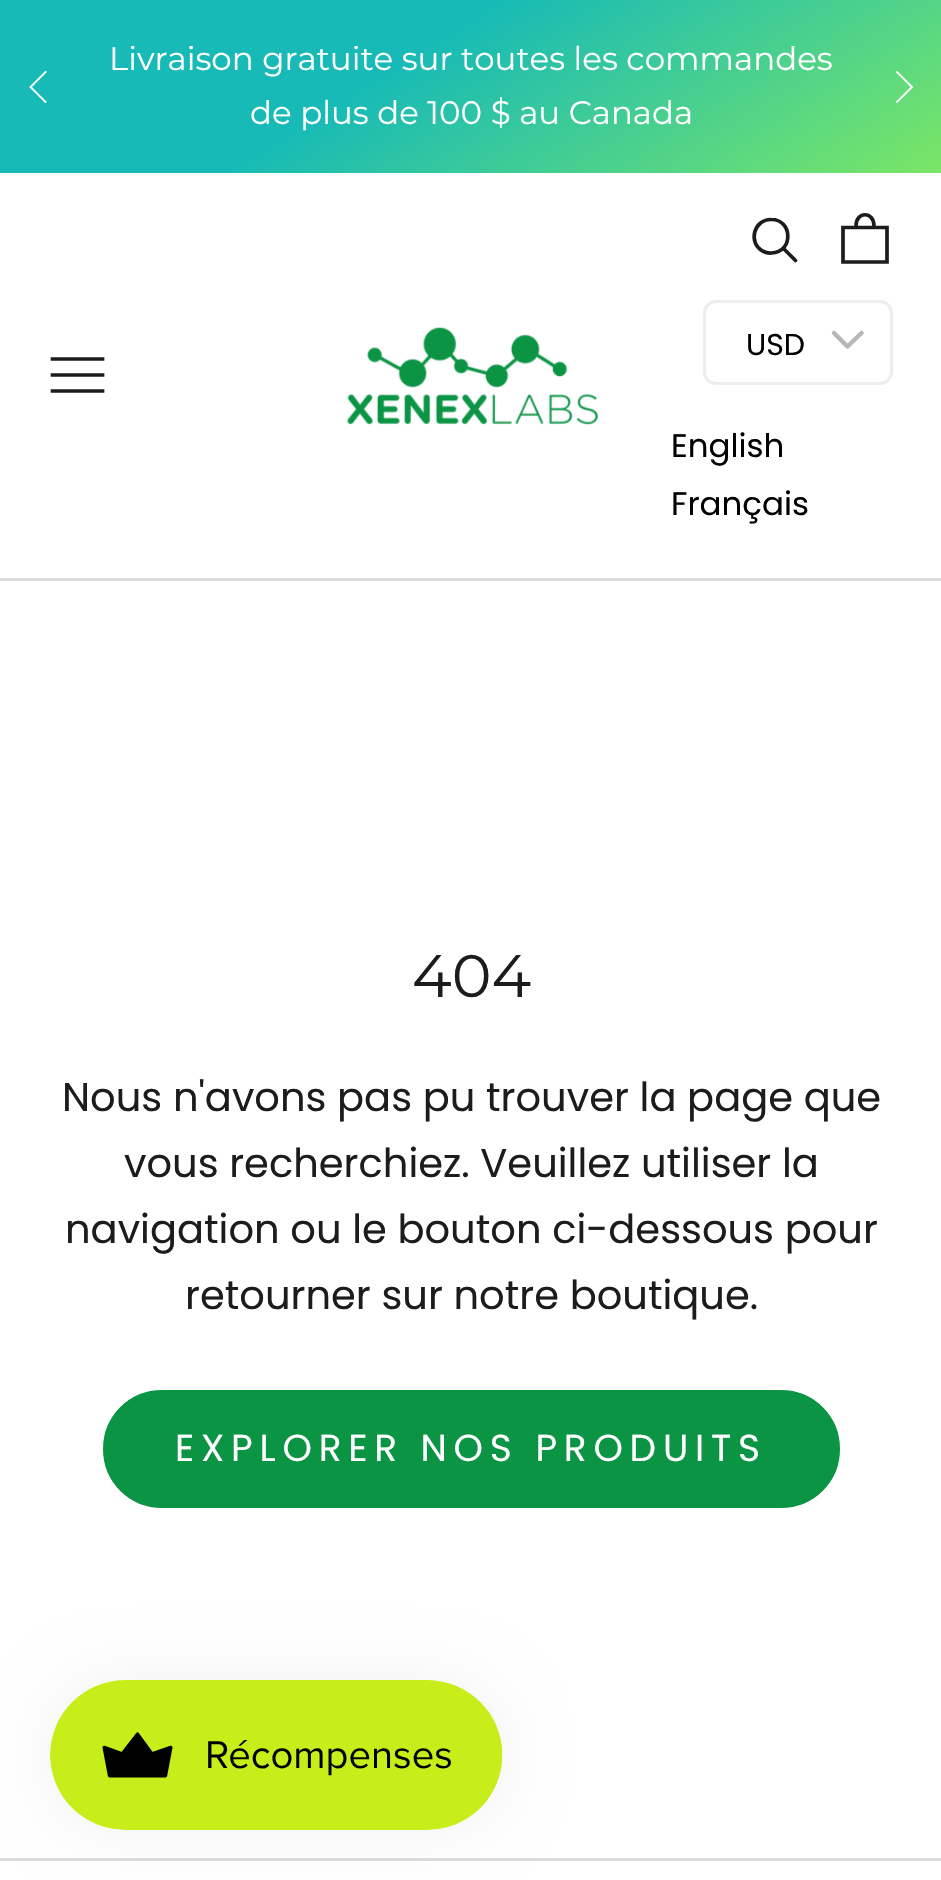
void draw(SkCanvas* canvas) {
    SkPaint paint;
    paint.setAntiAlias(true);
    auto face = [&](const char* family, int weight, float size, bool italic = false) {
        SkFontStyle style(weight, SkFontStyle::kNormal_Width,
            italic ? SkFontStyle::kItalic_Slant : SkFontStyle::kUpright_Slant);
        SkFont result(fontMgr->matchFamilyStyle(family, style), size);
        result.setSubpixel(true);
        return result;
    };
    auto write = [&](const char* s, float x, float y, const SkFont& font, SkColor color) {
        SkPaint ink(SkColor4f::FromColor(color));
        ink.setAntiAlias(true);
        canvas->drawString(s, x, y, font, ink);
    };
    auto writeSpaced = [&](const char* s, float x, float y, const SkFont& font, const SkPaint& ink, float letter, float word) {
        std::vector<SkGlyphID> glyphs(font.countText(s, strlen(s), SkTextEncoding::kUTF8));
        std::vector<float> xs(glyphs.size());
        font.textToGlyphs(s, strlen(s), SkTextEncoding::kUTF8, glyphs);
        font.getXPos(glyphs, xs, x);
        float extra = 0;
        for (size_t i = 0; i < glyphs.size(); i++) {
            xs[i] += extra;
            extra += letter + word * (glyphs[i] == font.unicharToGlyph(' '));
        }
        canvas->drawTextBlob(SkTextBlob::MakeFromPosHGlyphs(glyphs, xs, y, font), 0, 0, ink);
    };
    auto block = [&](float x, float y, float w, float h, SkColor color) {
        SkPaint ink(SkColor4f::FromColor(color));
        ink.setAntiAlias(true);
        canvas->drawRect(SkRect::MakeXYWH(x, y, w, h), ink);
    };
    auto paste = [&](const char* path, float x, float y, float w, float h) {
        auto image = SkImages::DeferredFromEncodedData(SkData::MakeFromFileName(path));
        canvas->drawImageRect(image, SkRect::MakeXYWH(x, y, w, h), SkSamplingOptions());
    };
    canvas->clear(SK_ColorWHITE);
    {
        const SkColor colors[] = {SkColorSetRGB(23, 186, 183), SkColorSetRGB(123, 230, 102)};
        const float stops[] = {0.41f, 1};
        const SkPoint ends[] = {{300, -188}, {642, 360}};
        paint.setShader(SkGradientShader::MakeLinear(ends, colors, stops, 2, SkTileMode::kClamp));
        paint.setAlpha(255);
    }
    canvas->drawRect(SkRect::MakeXYWH(0, 0, 941, 173), paint);
    paint.setStyle(SkPaint::kStroke_Style);
    paint.setStrokeWidth(1.9f);
    paint.setStrokeCap(SkPaint::kSquare_Cap);
    paint.setShader(nullptr);
    paint.setColor(SK_ColorWHITE);
    canvas->drawPath(SkPathBuilder().moveTo(45.5f, 72).lineTo(30.5f, 87).lineTo(45.5f, 102).detach(), paint);
    auto kFont1 = face("Montserrat", 400, 32.5f);
    write("Livraison gratuite sur toutes les commandes", 109, 70, kFont1, SK_ColorWHITE);
    write("de plus de 100 $ au Canada", 250, 124, kFont1, SK_ColorWHITE);
    canvas->drawPath(SkPathBuilder().moveTo(897, 102).lineTo(912, 87).lineTo(897, 72).detach(), paint);
    block(0, 578, 941, 3, SkColorSetRGB(221, 221, 221));
    paint.setStrokeWidth(3.7f);
    paint.setColor(SkColorSetRGB(28, 28, 28));
    canvas->drawPath(SkPathBuilder().moveTo(52.5f, 391).lineTo(102.5f, 391).moveTo(52.5f, 375).lineTo(102.5f, 375).moveTo(52.5f, 359).lineTo(102.5f, 359).detach(), paint);
    paste("pic1.png", 347, 327, 251, 98);
    paint.setStrokeCap(SkPaint::kButt_Cap);
    canvas->drawPath(SkPathBuilder().moveTo(771.5f, 219.5f).cubicTo(754, 219, 747.5f, 242.5f, 762.5f, 251).cubicTo(765.5f, 252.5f, 768.5f, 253.5f, 771.5f, 253).cubicTo(794, 252, 792.5f, 219.5f, 771.5f, 219.5f).close().detach(), paint);
    paint.setStrokeCap(SkPaint::kRound_Cap);
    canvas->drawPath(SkPathBuilder().moveTo(784, 249).lineTo(795.5f, 260.5f).detach(), paint);
    paint.setStrokeCap(SkPaint::kButt_Cap);
    canvas->drawPath(SkPathBuilder().moveTo(887, 262).lineTo(887, 227.5f).lineTo(843, 227.5f).lineTo(843, 262).close().moveTo(856, 226).cubicTo(856, 211, 874, 211, 874, 226).detach(), paint);
    paint.setStrokeWidth(3);
    paint.setColor(SkColorSetRGB(237, 237, 237));
    canvas->drawRoundRect(SkRect::MakeXYWH(704.5f, 301.5f, 187, 82), 11.5f, 11.5f, paint);
    auto kFont2 = face("Poppins", 400, 30);
    write("USD", 746, 355, kFont2, SK_ColorBLACK);
    paint.setStrokeWidth(4.5f);
    paint.setStrokeCap(SkPaint::kRound_Cap);
    paint.setStrokeJoin(SkPaint::kRound_Join);
    paint.setColor(SkColorSetRGB(183, 183, 183));
    canvas->drawPath(SkPathBuilder().moveTo(834, 333).lineTo(847.5f, 346.5f).lineTo(861.5f, 333).detach(), paint);
    auto kFont3 = face("Poppins", 400, 32.5f);
    write("English", 671, 457, kFont3, SK_ColorBLACK);
    write("Français", 671, 515, kFont3, SK_ColorBLACK);
    auto kFont4 = face("Montserrat", 400, 60);
    write("404", 412, 997, kFont4, SkColorSetRGB(28, 28, 28));
    auto kFont5 = face("Poppins", 400, 40);
    write("Nous n'avons pas pu trouver la page que", 62, 1111, kFont5, SkColorSetRGB(28, 28, 28));
    write("vous recherchiez. Veuillez utiliser la", 124, 1177, kFont5, SkColorSetRGB(28, 28, 28));
    write("navigation ou le bouton ci-dessous pour", 65, 1243, kFont5, SkColorSetRGB(28, 28, 28));
    write("retourner sur notre boutique.", 185, 1309, kFont5, SkColorSetRGB(28, 28, 28));
    canvas->save();
    canvas->clipPath(SkPathBuilder().moveTo(162, 1390).lineTo(781, 1390).cubicTo(813.5f, 1390, 840, 1416.5f, 840, 1449).cubicTo(840, 1481.5f, 813.5f, 1508, 781, 1508).lineTo(162, 1508).cubicTo(129.5f, 1508, 103, 1481.5f, 103, 1449).cubicTo(103, 1416.5f, 129.5f, 1390, 162, 1390).close().detach(), true);
    block(105, 1393, 733, 112, SkColorSetRGB(11, 148, 68));
    canvas->restore();
    paint.setStrokeWidth(3);
    paint.setStrokeCap(SkPaint::kButt_Cap);
    paint.setStrokeJoin(SkPaint::kMiter_Join);
    paint.setColor(SkColorSetRGB(11, 148, 68));
    canvas->drawRoundRect(SkRect::MakeXYWH(104.5f, 1391.5f, 734, 115), 57.5f, 57.5f, paint);
    auto kFont6 = face("Poppins", 400, 37.5f);
    paint.setStyle(SkPaint::kFill_Style);
    paint.setColor(SK_ColorWHITE);
    writeSpaced("EXPLORER NOS PRODUITS", 175, 1461, kFont6, paint, 6.75f, 0);
    block(0, 1858, 941, 3, SkColorSetRGB(221, 221, 221));
    paint.setColor(SkColorSetARGB(13, 0, 0, 0));
    paint.setMaskFilter(SkMaskFilter::MakeBlur(kNormal_SkBlurStyle, 31));
    canvas->drawRoundRect(SkRect::MakeXYWH(50, 1680, 453, 150), 75, 75, paint);
    paint.setMaskFilter(nullptr);
    paste("pic2.png", 50, 1680, 453, 150);
}
